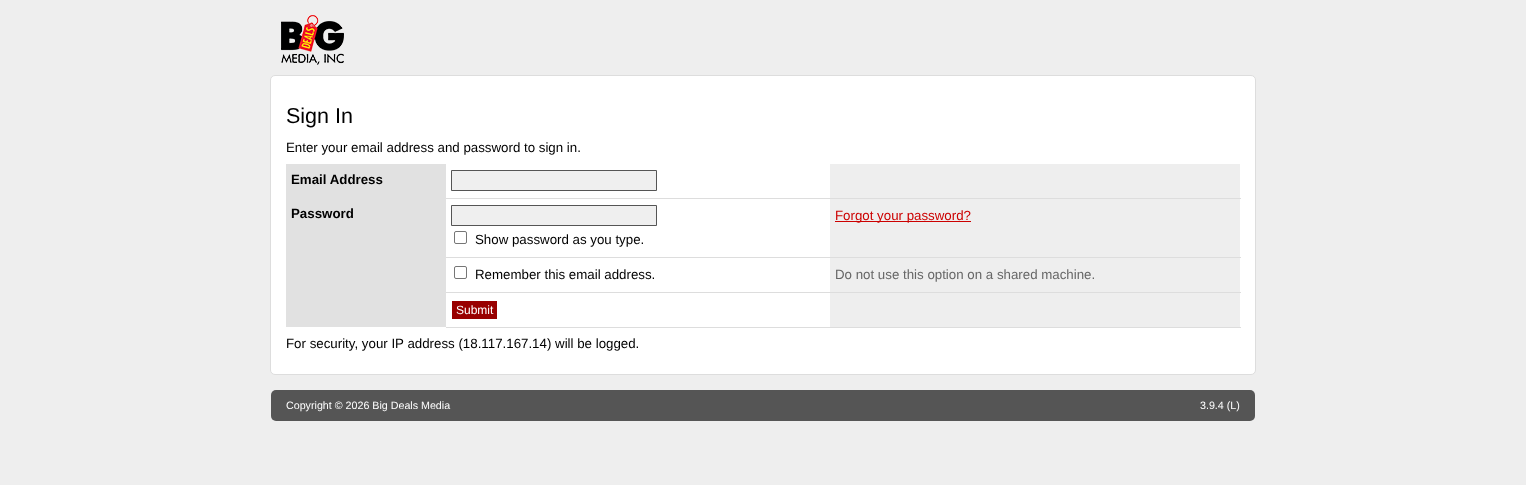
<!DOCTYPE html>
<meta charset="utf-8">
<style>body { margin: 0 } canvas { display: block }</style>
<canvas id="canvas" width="1526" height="485"></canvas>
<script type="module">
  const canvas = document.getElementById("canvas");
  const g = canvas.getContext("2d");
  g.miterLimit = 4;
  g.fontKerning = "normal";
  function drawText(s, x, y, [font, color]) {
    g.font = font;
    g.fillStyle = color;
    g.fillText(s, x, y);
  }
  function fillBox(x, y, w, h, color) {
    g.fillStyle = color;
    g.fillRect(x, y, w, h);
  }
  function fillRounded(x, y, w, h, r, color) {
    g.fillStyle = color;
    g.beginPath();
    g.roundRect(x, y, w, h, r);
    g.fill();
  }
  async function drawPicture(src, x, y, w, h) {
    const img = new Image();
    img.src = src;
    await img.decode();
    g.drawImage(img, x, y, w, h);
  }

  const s1 = ["21.5px Liberation Sans", "#000000"];
  const s2 = ["13.3px Liberation Sans", "#000000"];
  const s3 = ["bold 13.3px Liberation Sans", "#000000"];
  const s4 = ["13.3px Liberation Sans", "#CC0000"];
  const s5 = ["13.3px Liberation Sans", "#666666"];
  const s6 = ["12px Liberation Sans", "#FFFFFF"];
  const s7 = ["10.7px Liberation Sans", "#FFFFFF"];

  fillBox(0, 0, 1526, 485, "#EEEEEE");
  await drawPicture("pic1.png", 281, 15, 63, 50);
  g.fillStyle = "#FFFFFF";
  g.beginPath();
  g.roundRect(270.5, 75.5, 985, 299, 4.5);
  g.fill();
  g.strokeStyle = "#DDDDDD";
  g.stroke();
  drawText("Sign In", 286, 123, s1);
  drawText("Enter your email address and password to sign in.", 286, 152, s2);
  fillBox(830, 164, 410, 34, "#EEEEEE");
  fillBox(446, 198, 795, 1, "#DDDDDD");
  fillBox(286, 164, 160, 163, "#E1E1E1");
  drawText("Email Address", 291, 184, s3);
  g.fillStyle = "#EFEFEF";
  g.beginPath();
  g.rect(451.5, 170.5, 205, 20);
  g.fill();
  g.strokeStyle = "#555555";
  g.stroke();
  drawText("Password", 291, 218, s3);
  fillBox(830, 199, 410, 58, "#EEEEEE");
  fillBox(446, 257, 795, 1, "#DDDDDD");
  fillBox(835, 221, 136, 1, "#CC0000");
  drawText("Forgot your password?", 835, 220, s4);
  g.fillStyle = "#EFEFEF";
  g.beginPath();
  g.rect(451.5, 205.5, 205, 20);
  g.fill();
  g.stroke();
  g.beginPath();
  g.roundRect(454.5, 231.5, 12, 12, 1.5);
  g.strokeStyle = "#767676";
  g.stroke();
  drawText("Show password as you type.", 475, 244, s2);
  g.beginPath();
  g.roundRect(454.5, 266.5, 12, 12, 1.5);
  g.stroke();
  drawText("Remember this email address.", 475, 279, s2);
  fillBox(830, 258, 410, 34, "#EEEEEE");
  fillBox(446, 292, 795, 1, "#DDDDDD");
  drawText("Do not use this option on a shared machine.", 835, 279, s5);
  fillBox(830, 293, 410, 34, "#EEEEEE");
  fillBox(446, 327, 795, 1, "#DDDDDD");
  fillBox(452, 301, 45, 18, "#990000");
  drawText("Submit", 456, 314, s6);
  drawText("For security, your IP address (18.117.167.14) will be logged.", 286, 348, s2);
  fillRounded(271, 390, 984, 31, 5, "#555555");
  drawText("Copyright © 2026 Big Deals Media", 286, 409, s7);
  drawText("3.9.4 (L)", 1200, 409, s7);
</script>
